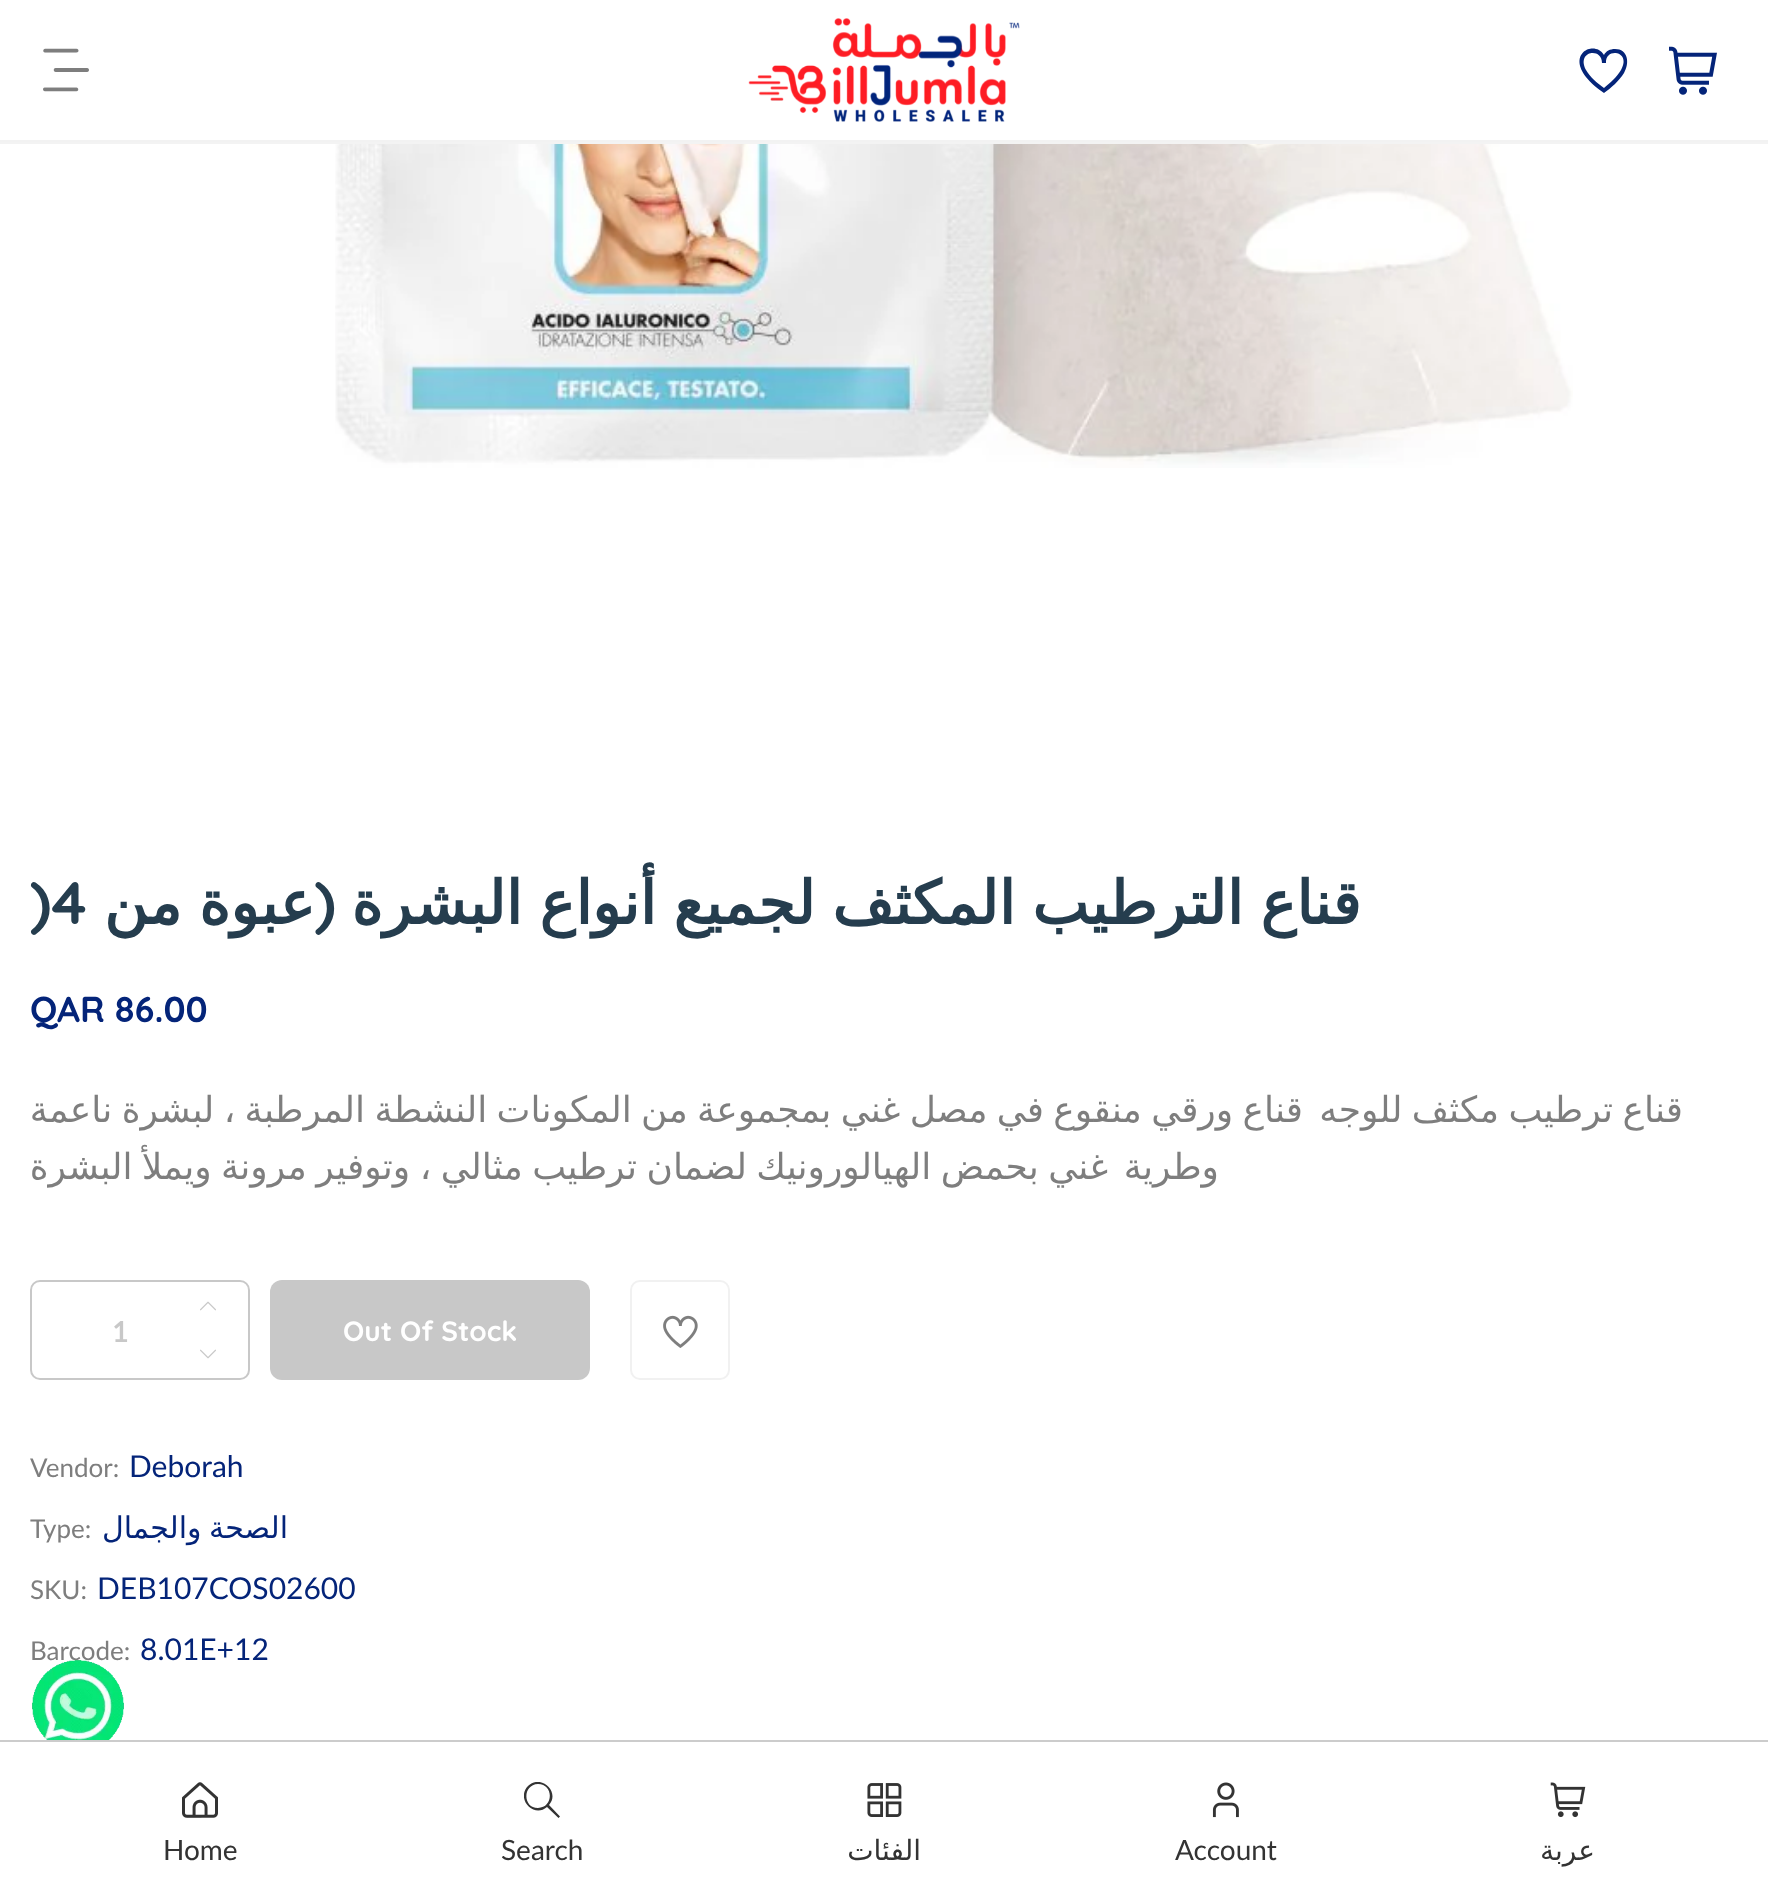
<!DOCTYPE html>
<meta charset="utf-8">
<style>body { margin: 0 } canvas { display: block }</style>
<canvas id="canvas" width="1768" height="1893"></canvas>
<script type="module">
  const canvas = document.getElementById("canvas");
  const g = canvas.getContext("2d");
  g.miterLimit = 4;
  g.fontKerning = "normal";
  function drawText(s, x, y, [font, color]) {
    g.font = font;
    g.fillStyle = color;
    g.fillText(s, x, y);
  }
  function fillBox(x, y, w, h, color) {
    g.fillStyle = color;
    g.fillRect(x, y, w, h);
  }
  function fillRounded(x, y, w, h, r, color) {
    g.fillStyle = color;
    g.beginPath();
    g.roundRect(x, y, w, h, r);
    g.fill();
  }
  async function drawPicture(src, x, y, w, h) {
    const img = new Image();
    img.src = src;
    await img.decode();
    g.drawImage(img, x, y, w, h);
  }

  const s1 = ["bold 60px DejaVu Sans", "#253D4E"];
  const s2 = ["bold 60px Quicksand", "#253D4E"];
  const s3 = ["bold 36px Quicksand", "#042479"];
  const s4 = ["36px DejaVu Sans", "#7E7E7E"];
  const s5 = ["bold 28px Quicksand", "#FFFFFF"];
  const s6 = ["bold 28px Lato", "#C8C8C8"];
  const s7 = ["30px Lato", "#042479"];
  const s8 = ["26px Lato", "#7E7E7E"];
  const s9 = ["30px DejaVu Sans", "#042479"];
  const s10 = ["28px DejaVu Sans", "#333333"];
  const s11 = ["28px Lato", "#333333"];

  fillBox(0, 0, 1768, 1893, "#FFFFFF");
  fillBox(0, 142, 1768, 2, "#F3F3F3");
  await drawPicture("pic1.png", 1669, 46, 48, 49);
  g.fillStyle = "#042479";
  g.beginPath();
  g.moveTo(1615, 49);
  g.bezierCurveTo(1610, 49, 1606, 51, 1604, 55);
  g.bezierCurveTo(1593, 37, 1555, 59, 1604, 93);
  g.bezierCurveTo(1611, 88, 1619, 81, 1624, 73);
  g.bezierCurveTo(1630, 63, 1628, 49, 1615, 49);
  g.closePath();
  g.moveTo(1604, 88);
  g.bezierCurveTo(1597, 83, 1590, 77, 1586, 70);
  g.bezierCurveTo(1576, 51, 1602, 47, 1602, 63);
  g.lineTo(1606, 63);
  g.bezierCurveTo(1605, 47, 1632, 51, 1621, 70);
  g.bezierCurveTo(1617, 77, 1610, 83, 1604, 88);
  g.closePath();
  g.fill();
  await drawPicture("pic2.png", 748, 18, 272, 104);
  await drawPicture("pic3.png", 43, 48, 46, 44);
  fillBox(0, 140, 1768, 2, "#F2F2F2");
  await drawPicture("pic4.png", 335, 144, 1238, 324);
  g.wordSpacing = "-2px";
  g.direction = "rtl";
  drawText("قناع الترطيب المكثف لجميع أنواع البشرة", 1361, 924, s1);
  g.wordSpacing = "0px";
  drawText("(", 336, 924, s2);
  g.wordSpacing = "-2px";
  drawText("عبوة من", 315, 924, s1);
  g.wordSpacing = "0px";
  g.direction = "ltr";
  drawText(")4", 30, 924, s2);
  drawText("QAR 86.00", 30, 1022, s3);
  g.wordSpacing = "-2.1px";
  g.direction = "rtl";
  drawText("قناع ترطيب مكثف للوجه", 1683, 1122, s4);
  drawText("قناع ورقي منقوع في مصل غني بمجموعة من المكونات النشطة المرطبة ، لبشرة ناعمة", 1303, 1122, s4);
  g.wordSpacing = "0px";
  drawText("وطرية", 1219, 1179, s4);
  g.wordSpacing = "-2px";
  drawText("غني بحمض الهيالورونيك لضمان ترطيب مثالي ، وتوفير مرونة ويملأ البشرة", 1108, 1179, s4);
  g.beginPath();
  g.roundRect(631, 1281, 98, 98, 9);
  g.strokeStyle = "#F1F1F1";
  g.lineWidth = 2;
  g.stroke();
  await drawPicture("pic5.png", 663, 1315, 35, 33);
  fillRounded(270, 1280, 320, 100, 12, "#C8C8C8");
  g.wordSpacing = "0px";
  g.direction = "ltr";
  drawText("Out Of Stock", 343, 1341, s5);
  g.beginPath();
  g.roundRect(31, 1281, 218, 98, 9);
  g.strokeStyle = "#C8C8C8";
  g.stroke();
  await drawPicture("pic6.png", 200, 1301, 16, 10);
  drawText("1", 112, 1342, s6);
  await drawPicture("pic7.png", 200, 1349, 16, 10);
  drawText("Deborah", 129, 1477, s7);
  drawText("Vendor:", 30, 1477, s8);
  g.wordSpacing = "-2px";
  g.direction = "rtl";
  drawText("الصحة والجمال", 288, 1538, s9);
  g.wordSpacing = "0px";
  g.direction = "ltr";
  drawText("Type:", 30, 1538, s8);
  drawText("DEB107COS02600", 97, 1599, s7);
  drawText("SKU:", 30, 1599, s8);
  drawText("8.01E+12", 140, 1660, s7);
  drawText("Barcode:", 30, 1660, s8);
  await drawPicture("pic8.png", 32, 1660, 92, 80);
  fillBox(0, 1740, 1768, 2, "#CCCCCC");
  await drawPicture("pic9.png", 1550, 1782, 36, 36);
  g.direction = "rtl";
  drawText("عربة", 1595, 1860, s10);
  await drawPicture("pic10.png", 1212, 1782, 27, 36);
  g.direction = "ltr";
  drawText("Account", 1175, 1860, s11);
  await drawPicture("pic11.png", 867, 1783, 35, 34);
  g.direction = "rtl";
  drawText("الفئات", 921, 1860, s10);
  g.save();
  g.beginPath();
  g.rect(524, 1782, 36, 36);
  g.clip();
  g.beginPath();
  g.moveTo(560, 1816.5);
  g.lineTo(549, 1805);
  g.bezierCurveTo(560.5, 1792, 541, 1773.5, 528, 1786);
  g.bezierCurveTo(515.5, 1799, 534, 1818.5, 547, 1807);
  g.lineTo(558.5, 1818);
  g.closePath();
  g.moveTo(538, 1808);
  g.bezierCurveTo(522.5, 1808, 522.5, 1784.5, 538, 1784);
  g.bezierCurveTo(554, 1784, 553.5, 1808, 538, 1808);
  g.closePath();
  g.fill();
  g.restore();
  g.direction = "ltr";
  drawText("Search", 501, 1860, s11);
  await drawPicture("pic12.png", 182, 1782, 36, 36);
  drawText("Home", 163, 1860, s11);
</script>
